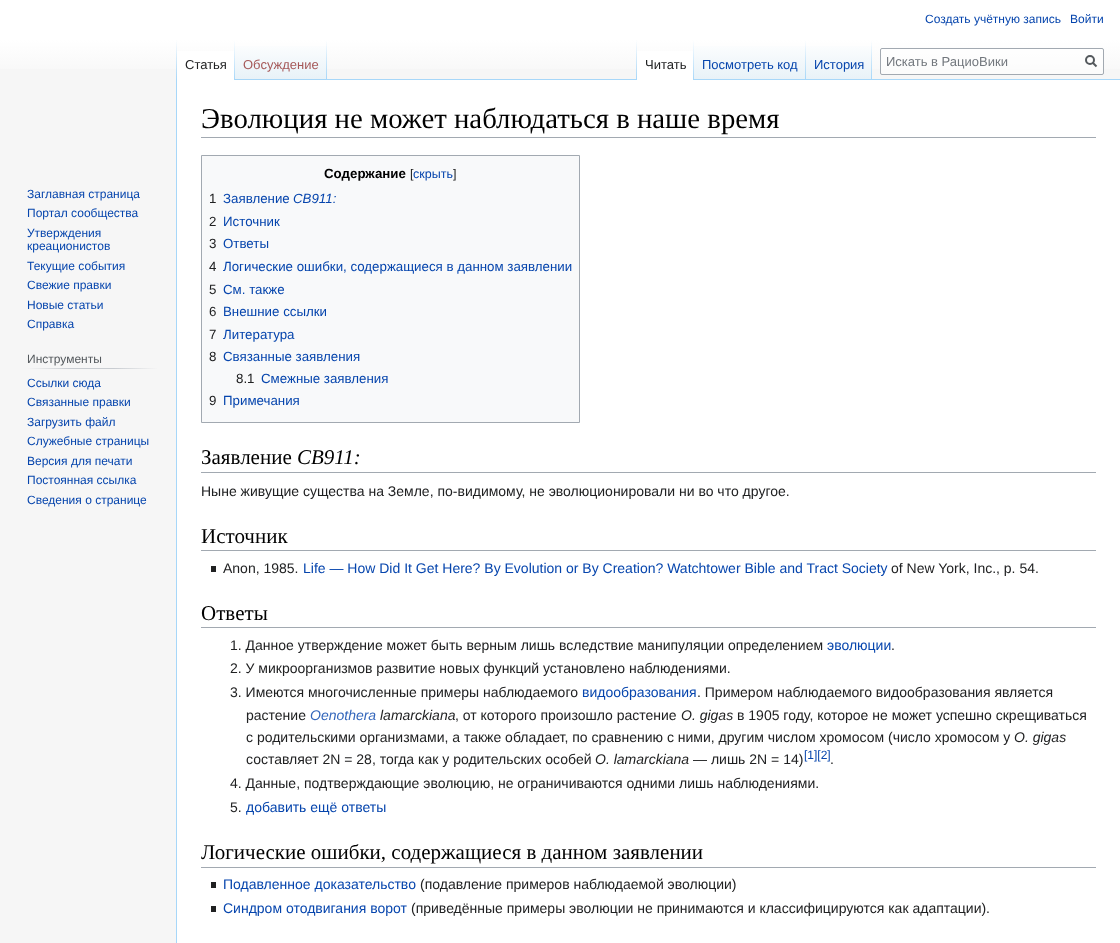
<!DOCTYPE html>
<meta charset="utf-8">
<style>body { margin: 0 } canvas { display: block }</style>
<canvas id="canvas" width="1120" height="943"></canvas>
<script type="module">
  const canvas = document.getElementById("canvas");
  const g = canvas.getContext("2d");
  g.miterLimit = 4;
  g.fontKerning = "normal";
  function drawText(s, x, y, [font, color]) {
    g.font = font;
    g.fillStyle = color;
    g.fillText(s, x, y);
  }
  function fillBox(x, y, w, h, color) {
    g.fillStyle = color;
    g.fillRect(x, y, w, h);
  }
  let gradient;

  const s1 = ["12px Liberation Sans", "#0645AD"];
  const s2 = ["13px Liberation Sans", "#202122"];
  const s3 = ["13px Liberation Sans", "#A55858"];
  const s4 = ["13px Liberation Sans", "#0645AD"];
  const s5 = ["13px Liberation Sans", "#72777D"];
  const s6 = ["12px Liberation Sans", "#54595D"];
  const s7 = ["28.8px Liberation Serif", "#000000"];
  const s8 = ["bold 13.3px Liberation Sans", "#000000"];
  const s9 = ["12.5px Liberation Sans", "#202122"];
  const s10 = ["12.5px Liberation Sans", "#0645AD"];
  const s11 = ["13.3px Liberation Sans", "#202122"];
  const s12 = ["13.3px Liberation Sans", "#0645AD"];
  const s13 = ["italic 13.3px Liberation Sans", "#0645AD"];
  const s14 = ["21px Liberation Serif", "#000000"];
  const s15 = ["italic 21px Liberation Serif", "#000000"];
  const s16 = ["14px Liberation Sans", "#202122"];
  const s17 = ["14px Liberation Sans", "#0645AD"];
  const s18 = ["italic 14px Liberation Sans", "#3366BB"];
  const s19 = ["italic 14px Liberation Sans", "#202122"];

  fillBox(0, 0, 1120, 943, "#F6F6F6");
  gradient = g.createLinearGradient(560, 0, 560, 80);
  gradient.addColorStop(0.5, "#FFFFFF");
  gradient.addColorStop(1, "#F6F6F6");
  g.fillStyle = gradient;
  g.fillRect(0, 0, 1120, 69);
  drawText("Создать учётную запись", 925, 23, s1);
  drawText("Войти", 1070, 23, s1);
  fillBox(176, 79, 1, 864, "#A7D7F9");
  gradient = g.createLinearGradient(177, 40, 177, 80);
  gradient.addColorStop(0, "rgba(167, 215, 249, 0)");
  gradient.addColorStop(1, "#A7D7F9");
  g.fillStyle = gradient;
  g.fillRect(176, 40, 1, 40);
  fillBox(177, 51, 57, 29, "#FFFFFF");
  gradient = g.createLinearGradient(235, 40, 235, 80);
  gradient.addColorStop(0, "#FFFFFF");
  gradient.addColorStop(1, "#A7D7F9");
  g.fillStyle = gradient;
  g.fillRect(234, 40, 1, 40);
  drawText("Статья", 185, 69, s2);
  gradient = g.createLinearGradient(281, 80, 281, 40);
  gradient.addColorStop(0, "#77C1F6");
  gradient.addColorStop(0.03, "#E8F2F8");
  gradient.addColorStop(1, "#FFFFFF");
  g.fillStyle = gradient;
  g.fillRect(235, 46, 92, 34);
  gradient = g.createLinearGradient(327, 40, 327, 80);
  gradient.addColorStop(0, "rgba(167, 215, 249, 0)");
  gradient.addColorStop(1, "#A7D7F9");
  g.fillStyle = gradient;
  g.fillRect(326, 40, 1, 40);
  drawText("Обсуждение", 243, 69, s3);
  fillBox(327, 79, 793, 1, "#A7D7F9");
  gradient = g.createLinearGradient(637, 40, 637, 80);
  gradient.addColorStop(0, "rgba(167, 215, 249, 0)");
  gradient.addColorStop(1, "#A7D7F9");
  g.fillStyle = gradient;
  g.fillRect(636, 40, 1, 40);
  fillBox(637, 51, 56, 29, "#FFFFFF");
  gradient = g.createLinearGradient(694, 40, 694, 80);
  gradient.addColorStop(0, "#FFFFFF");
  gradient.addColorStop(1, "#A7D7F9");
  g.fillStyle = gradient;
  g.fillRect(693, 40, 1, 40);
  drawText("Читать", 645, 69, s2);
  gradient = g.createLinearGradient(750, 80, 750, 40);
  gradient.addColorStop(0, "#77C1F6");
  gradient.addColorStop(0.03, "#E8F2F8");
  gradient.addColorStop(1, "#FFFFFF");
  g.fillStyle = gradient;
  g.fillRect(694, 46, 112, 33);
  gradient = g.createLinearGradient(806, 40, 806, 80);
  gradient.addColorStop(0, "rgba(167, 215, 249, 0)");
  gradient.addColorStop(1, "#A7D7F9");
  g.fillStyle = gradient;
  g.fillRect(805, 40, 1, 40);
  drawText("Посмотреть код", 702, 69, s4);
  gradient = g.createLinearGradient(839, 80, 839, 40);
  gradient.addColorStop(0, "#77C1F6");
  gradient.addColorStop(0.03, "#E8F2F8");
  gradient.addColorStop(1, "#FFFFFF");
  g.fillStyle = gradient;
  g.fillRect(806, 46, 66, 33);
  gradient = g.createLinearGradient(872, 40, 872, 80);
  gradient.addColorStop(0, "rgba(167, 215, 249, 0)");
  gradient.addColorStop(1, "#A7D7F9");
  g.fillStyle = gradient;
  g.fillRect(871, 40, 1, 40);
  drawText("История", 814, 69, s4);
  g.fillStyle = "rgba(255, 255, 255, 0.5)";
  g.beginPath();
  g.roundRect(880.5, 48.5, 223, 26, 1.5);
  g.fill();
  g.strokeStyle = "#A2A9B1";
  g.stroke();
  drawText("Искать в РациоВики", 886, 66, s5);
  g.beginPath();
  g.moveTo(1096.5, 66.5);
  g.lineTo(1092.5, 62.5);
  g.strokeStyle = "#54595D";
  g.lineWidth = 2;
  g.stroke();
  g.beginPath();
  g.arc(1090, 60, 4, 0, Math.PI * 2);
  g.stroke();
  drawText("Заглавная страница", 27, 198, s1);
  drawText("Портал сообщества", 27, 217, s1);
  drawText("Утверждения", 27, 237, s1);
  drawText("креационистов", 27, 250, s1);
  drawText("Текущие события", 27, 270, s1);
  drawText("Свежие правки", 27, 289, s1);
  drawText("Новые статьи", 27, 309, s1);
  drawText("Справка", 27, 328, s1);
  gradient = g.createLinearGradient(27, 369, 158, 369);
  gradient.addColorStop(0, "#F6F6F6");
  gradient.addColorStop(0.33, "#C8CCD1");
  gradient.addColorStop(0.66, "#C8CCD1");
  gradient.addColorStop(1, "#F6F6F6");
  g.fillStyle = gradient;
  g.fillRect(27, 368, 131, 1);
  drawText("Инструменты", 27, 363, s6);
  drawText("Ссылки сюда", 27, 387, s1);
  drawText("Связанные правки", 27, 406, s1);
  drawText("Загрузить файл", 27, 426, s1);
  drawText("Служебные страницы", 27, 445, s1);
  drawText("Версия для печати", 27, 465, s1);
  drawText("Постоянная ссылка", 27, 484, s1);
  drawText("Сведения о странице", 27, 504, s1);
  fillBox(177, 80, 943, 863, "#FFFFFF");
  fillBox(201, 137, 895, 1, "#A2A9B1");
  drawText("Эволюция не может наблюдаться в наше время", 201, 128, s7);
  g.fillStyle = "#F8F9FA";
  g.beginPath();
  g.rect(201.5, 155.5, 378, 267);
  g.fill();
  g.strokeStyle = "#A2A9B1";
  g.lineWidth = 1;
  g.stroke();
  drawText("Содержание", 324, 178, s8);
  drawText("[", 410, 178, s9);
  drawText("скрыть", 413, 178, s10);
  drawText("]", 453, 178, s9);
  drawText("1", 209, 203, s11);
  drawText("Заявление", 223, 203, s12);
  drawText("CB911:", 293, 203, s13);
  drawText("2", 209, 226, s11);
  drawText("Источник", 223, 226, s12);
  drawText("3", 209, 248, s11);
  drawText("Ответы", 223, 248, s12);
  drawText("4", 209, 271, s11);
  drawText("Логические ошибки, содержащиеся в данном заявлении", 223, 271, s12);
  drawText("5", 209, 294, s11);
  drawText("См. также", 223, 294, s12);
  drawText("6", 209, 316, s11);
  drawText("Внешние ссылки", 223, 316, s12);
  drawText("7", 209, 339, s11);
  drawText("Литература", 223, 339, s12);
  drawText("8", 209, 361, s11);
  drawText("Связанные заявления", 223, 361, s12);
  drawText("8.1", 236, 383, s11);
  drawText("Смежные заявления", 261, 383, s12);
  drawText("9", 209, 405, s11);
  drawText("Примечания", 223, 405, s12);
  fillBox(201, 472, 895, 1, "#A2A9B1");
  drawText("Заявление", 201, 464, s14);
  drawText("CB911:", 297, 464, s15);
  drawText("Ныне живущие существа на Земле, по-видимому, не эволюционировали ни во что другое.", 201, 496, s16);
  fillBox(201, 550, 895, 1, "#A2A9B1");
  drawText("Источник", 201, 543, s14);
  fillBox(211, 566, 5, 6, "#202122");
  drawText("Anon, 1985.", 223, 573, s16);
  drawText("Life — How Did It Get Here? By Evolution or By Creation? Watchtower Bible and Tract Society", 303, 573, s17);
  drawText("of New York, Inc., p. 54.", 891, 573, s16);
  fillBox(201, 627, 895, 1, "#A2A9B1");
  drawText("Ответы", 201, 620, s14);
  drawText("1. Данное утверждение может быть верным лишь вследствие манипуляции определением", 230, 650, s16);
  drawText("эволюции", 827, 650, s17);
  drawText(".", 891, 650, s16);
  drawText("2. У микроорганизмов развитие новых функций установлено наблюдениями.", 230, 673, s16);
  drawText("3. Имеются многочисленные примеры наблюдаемого", 230, 697, s16);
  drawText("видообразования", 582, 697, s17);
  drawText(". Примером наблюдаемого видообразования является", 697, 697, s16);
  drawText("растение", 246, 720, s16);
  drawText("Oenothera", 310, 720, s18);
  drawText("lamarckiana", 380, 720, s19);
  drawText(", от которого произошло растение", 455, 720, s16);
  drawText("O. gigas", 681, 720, s19);
  drawText("в 1905 году, которое не может успешно скрещиваться", 737, 720, s16);
  drawText("с родительскими организмами, а также обладает, по сравнению с ними, другим числом хромосом (число хромосом у", 246, 742, s16);
  drawText("O. gigas", 1014, 742, s19);
  drawText("составляет 2N = 28, тогда как у родительских особей", 246, 764, s16);
  drawText("O. lamarckiana", 595, 764, s19);
  drawText("— лишь 2N = 14)", 693, 764, s16);
  drawText("[1][2]", 804, 759, s1);
  drawText(".", 830, 764, s16);
  drawText("4. Данные, подтверждающие эволюцию, не ограничиваются одними лишь наблюдениями.", 230, 788, s16);
  drawText("5.", 230, 812, s16);
  drawText("добавить ещё ответы", 246, 812, s17);
  fillBox(201, 867, 895, 1, "#A2A9B1");
  drawText("Логические ошибки, содержащиеся в данном заявлении", 201, 859, s14);
  fillBox(211, 882, 5, 6, "#202122");
  drawText("Подавленное доказательство", 223, 889, s17);
  drawText("(подавление примеров наблюдаемой эволюции)", 420, 889, s16);
  fillBox(211, 906, 5, 6, "#202122");
  drawText("Синдром отодвигания ворот", 223, 913, s17);
  drawText("(приведённые примеры эволюции не принимаются и классифицируются как адаптации).", 411, 913, s16);
</script>
